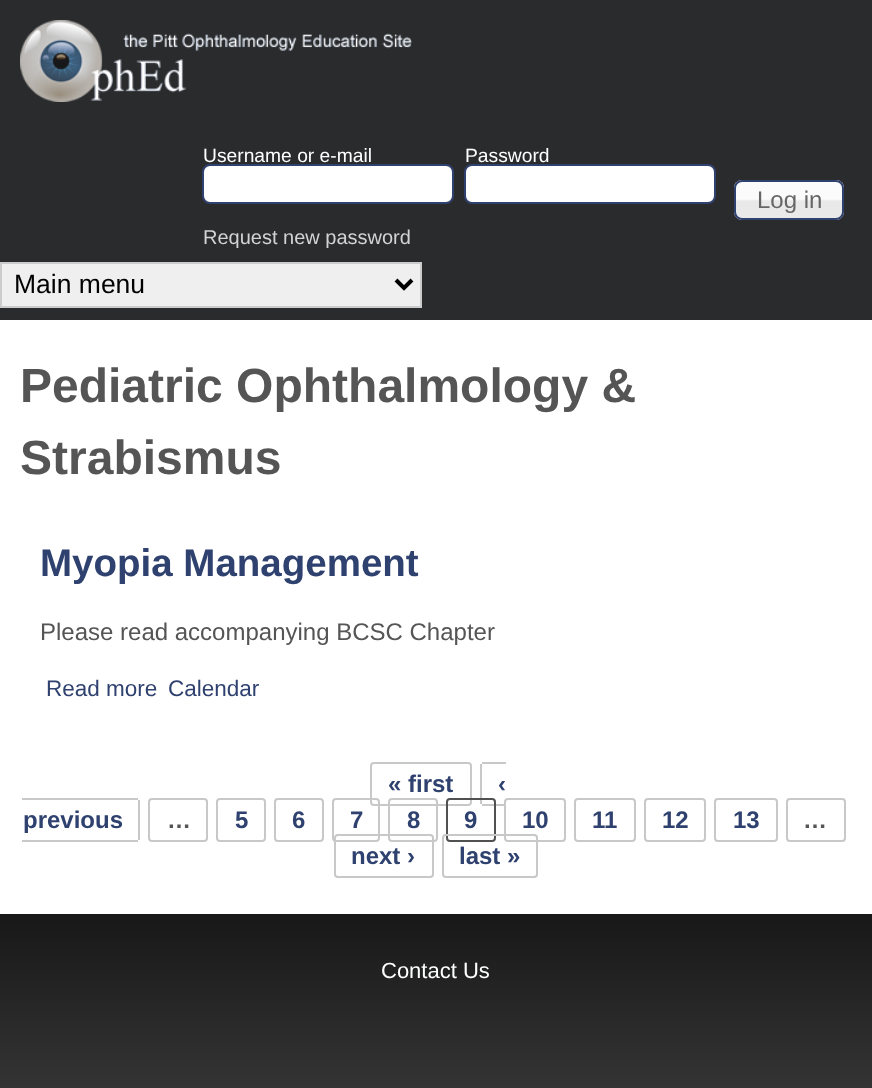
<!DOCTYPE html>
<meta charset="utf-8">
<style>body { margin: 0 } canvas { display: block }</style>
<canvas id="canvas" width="872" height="1088"></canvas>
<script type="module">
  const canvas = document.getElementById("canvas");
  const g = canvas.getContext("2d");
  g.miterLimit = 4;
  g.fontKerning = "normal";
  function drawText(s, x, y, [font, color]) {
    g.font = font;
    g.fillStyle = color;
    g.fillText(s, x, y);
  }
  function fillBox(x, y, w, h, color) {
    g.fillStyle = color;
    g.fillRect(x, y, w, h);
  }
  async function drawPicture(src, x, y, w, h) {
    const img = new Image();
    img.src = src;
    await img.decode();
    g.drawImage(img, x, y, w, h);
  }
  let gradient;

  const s1 = ["19.25px Liberation Sans", "#FEFFFF"];
  const s2 = ["24px Liberation Sans", "#666666"];
  const s3 = ["20px Liberation Sans", "#D3D3D3"];
  const s4 = ["26.5px Liberation Sans", "#000000"];
  const s5 = ["bold 48px Liberation Sans", "#555555"];
  const s6 = ["bold 38.5px Liberation Sans", "#2F416F"];
  const s7 = ["24px Liberation Sans", "#555555"];
  const s8 = ["22.5px Liberation Sans", "#2F416F"];
  const s9 = ["bold 24px Liberation Sans", "#2F416F"];
  const s10 = ["bold 24px Liberation Sans", "#555555"];
  const s11 = ["22px Liberation Sans", "#FEFFFF"];

  fillBox(0, 0, 872, 1088, "#FFFFFF");
  fillBox(0, 0, 872, 248, "#2A2B2D");
  await drawPicture("pic1.png", 20, 20, 392, 82);
  drawText("Username or e-mail", 203, 162, s1);
  g.fillStyle = "#FFFFFF";
  g.beginPath();
  g.roundRect(203, 165, 250, 38, 7);
  g.fill();
  g.strokeStyle = "#2F416F";
  g.lineWidth = 2;
  g.stroke();
  drawText("Password", 465, 162, s1);
  g.fillStyle = "#FFFFFF";
  g.beginPath();
  g.roundRect(465, 165, 250, 38, 7);
  g.fill();
  g.stroke();
  await drawPicture("pic2.png", 734, 180, 110, 40);
  g.beginPath();
  g.roundRect(735, 181, 108, 38, 7);
  g.stroke();
  drawText("Log in", 757, 208, s2);
  drawText("Request new password", 203, 244, s3);
  fillBox(0, 248, 872, 72, "#2A2B2D");
  g.fillStyle = "#EFEFEF";
  g.beginPath();
  g.rect(1, 263, 420, 44);
  g.fill();
  g.strokeStyle = "#CCCCCC";
  g.stroke();
  g.beginPath();
  g.moveTo(396, 280);
  g.lineTo(404, 288);
  g.lineTo(412, 280);
  g.strokeStyle = "#000000";
  g.lineWidth = 4;
  g.stroke();
  drawText("Main menu", 14, 293, s4);
  drawText("Pediatric Ophthalmology &", 20, 402, s5);
  drawText("Strabismus", 20, 474, s5);
  drawText("Myopia Management", 40, 576, s6);
  drawText("Please read accompanying BCSC Chapter", 40, 640, s7);
  drawText("Read more", 46, 696, s8);
  drawText("Calendar", 168, 696, s8);
  g.beginPath();
  g.roundRect(371, 763, 100, 42, 3);
  g.strokeStyle = "#C8C8C9";
  g.lineWidth = 2;
  g.stroke();
  drawText("« first", 388, 792, s9);
  drawText("‹", 498, 792, s9);
  fillBox(482, 762, 24, 2, "#C8C8C9");
  fillBox(482, 804, 24, 2, "#C8C8C9");
  fillBox(480, 764, 2, 40, "#C8C8C9");
  drawText("previous", 23, 828, s9);
  fillBox(22, 798, 116, 2, "#C8C8C9");
  fillBox(138, 800, 2, 40, "#C8C8C9");
  fillBox(22, 840, 116, 2, "#C8C8C9");
  g.beginPath();
  g.roundRect(149, 799, 58, 42, 3);
  g.stroke();
  drawText("…", 167, 828, s10);
  g.beginPath();
  g.roundRect(217, 799, 48, 42, 3);
  g.stroke();
  drawText("5", 235, 828, s9);
  g.beginPath();
  g.roundRect(275, 799, 48, 42, 3);
  g.stroke();
  drawText("6", 292, 828, s9);
  g.beginPath();
  g.roundRect(333, 799, 46, 42, 3);
  g.stroke();
  drawText("7", 350, 828, s9);
  g.beginPath();
  g.roundRect(389, 799, 48, 42, 3);
  g.stroke();
  drawText("8", 407, 828, s9);
  g.beginPath();
  g.roundRect(447, 799, 48, 42, 3);
  g.strokeStyle = "#4F5152";
  g.stroke();
  drawText("9", 464, 828, s9);
  g.beginPath();
  g.roundRect(505, 799, 60, 42, 3);
  g.strokeStyle = "#C8C8C9";
  g.stroke();
  drawText("10", 522, 828, s9);
  g.beginPath();
  g.roundRect(575, 799, 60, 42, 3);
  g.stroke();
  drawText("11", 592, 828, s9);
  g.beginPath();
  g.roundRect(645, 799, 60, 42, 3);
  g.stroke();
  drawText("12", 662, 828, s9);
  g.beginPath();
  g.roundRect(715, 799, 62, 42, 3);
  g.stroke();
  drawText("13", 733, 828, s9);
  g.beginPath();
  g.roundRect(787, 799, 58, 42, 3);
  g.stroke();
  drawText("…", 803, 828, s10);
  g.beginPath();
  g.roundRect(335, 835, 98, 42, 3);
  g.stroke();
  drawText("next ›", 351, 864, s9);
  g.beginPath();
  g.roundRect(443, 835, 94, 42, 3);
  g.stroke();
  drawText("last »", 459, 864, s9);
  gradient = g.createLinearGradient(0, 914, 0, 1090);
  gradient.addColorStop(0, "#181818");
  gradient.addColorStop(1, "#343434");
  g.fillStyle = gradient;
  g.fillRect(0, 914, 872, 174);
  drawText("Contact Us", 381, 978, s11);
</script>
